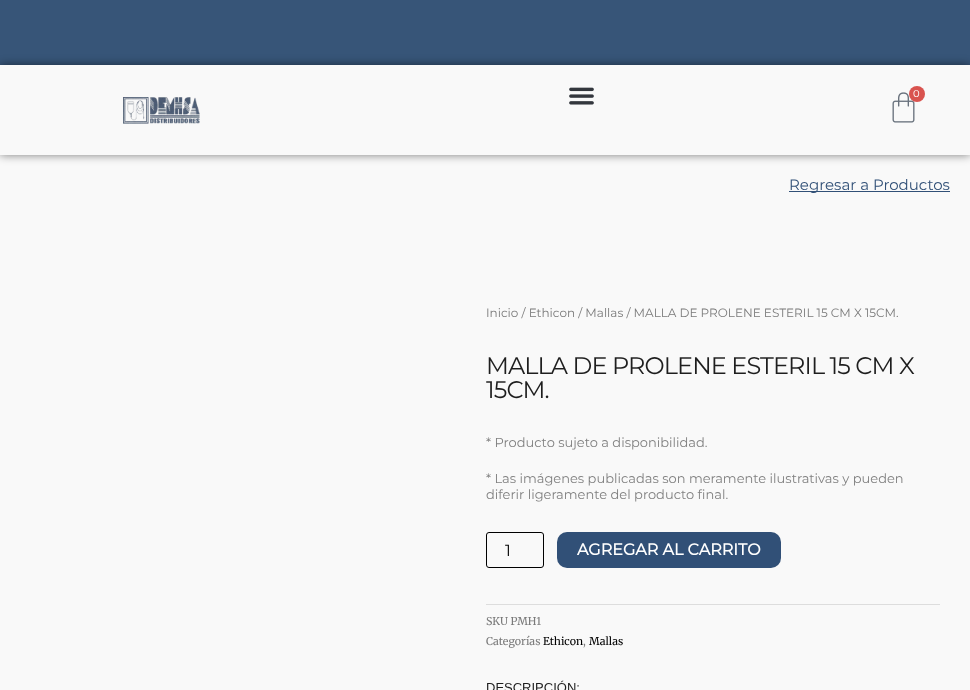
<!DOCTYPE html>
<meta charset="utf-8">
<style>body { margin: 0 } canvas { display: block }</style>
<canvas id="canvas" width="970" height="690"></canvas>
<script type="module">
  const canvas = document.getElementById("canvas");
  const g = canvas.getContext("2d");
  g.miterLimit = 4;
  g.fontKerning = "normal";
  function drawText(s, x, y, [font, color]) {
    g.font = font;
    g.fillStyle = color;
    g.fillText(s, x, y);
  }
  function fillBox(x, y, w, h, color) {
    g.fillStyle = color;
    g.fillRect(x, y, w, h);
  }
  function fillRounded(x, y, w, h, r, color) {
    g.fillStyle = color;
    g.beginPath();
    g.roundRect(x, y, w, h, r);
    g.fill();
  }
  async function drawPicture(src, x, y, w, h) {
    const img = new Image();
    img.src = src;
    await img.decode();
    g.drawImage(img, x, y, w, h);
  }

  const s1 = ["100 10px Montserrat", "#FFFFFF"];
  const s2 = ["100 15px Montserrat", "#315077"];
  const s3 = ["100 12px Montserrat", "#7A7A7A"];
  const s4 = ["100 24px Montserrat", "#1E1E1E"];
  const s5 = ["100 13px Montserrat", "#818181"];
  const s6 = ["100 16px Montserrat", "#000000"];
  const s7 = ["bold 16px Montserrat", "#FFFFFF"];
  const s8 = ["10.75px Merriweather", "#7A7A7A"];
  const s9 = ["10.75px Merriweather", "#000000"];
  const s10 = ["13px Liberation Sans", "#1E1E1E"];

  fillBox(0, 0, 970, 690, "#F9F9F9");
  fillBox(0, 0, 970, 65, "#375578");
  g.save();
  g.beginPath();
  g.moveTo(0, 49);
  g.lineTo(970, 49);
  g.lineTo(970, 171);
  g.lineTo(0, 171);
  g.closePath();
  g.moveTo(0, 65);
  g.lineTo(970, 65);
  g.lineTo(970, 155);
  g.lineTo(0, 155);
  g.closePath();
  g.clip("evenodd");
  g.fillStyle = "rgba(0, 0, 0, 0.5)";
  g.filter = "blur(5px)";
  g.beginPath();
  g.rect(0, 65, 970, 90);
  g.fill();
  g.filter = "none";
  g.restore();
  await drawPicture("pic1.png", 569, 87, 25, 18);
  await drawPicture("pic2.png", 892, 92, 23, 31);
  g.fillStyle = "#D9534F";
  g.beginPath();
  g.arc(917, 94, 8, 0, Math.PI * 2);
  g.fill();
  drawText("0", 913, 97, s1);
  await drawPicture("pic3.png", 123, 97, 77, 27);
  fillBox(789, 191, 161, 1, "#315077");
  drawText("Regresar a Productos", 789, 190, s2);
  drawText("Inicio / Ethicon / Mallas / MALLA DE PROLENE ESTERIL 15 CM X 15CM.", 486, 317, s3);
  g.letterSpacing = "-0.9px";
  drawText("MALLA DE PROLENE ESTERIL 15 CM X", 486, 374, s4);
  drawText("15CM.", 486, 398, s4);
  g.letterSpacing = "0px";
  drawText("* Producto sujeto a disponibilidad.", 486, 447, s5);
  drawText("* Las imágenes publicadas son meramente ilustrativas y pueden", 486, 483, s5);
  drawText("diferir ligeramente del producto final.", 486, 499, s5);
  g.beginPath();
  g.roundRect(486.5, 532.5, 57, 35, 2.5);
  g.strokeStyle = "#000000";
  g.stroke();
  drawText("1", 505, 556, s6);
  fillRounded(557, 532, 224, 36, 10, "#315077");
  drawText("AGREGAR AL CARRITO", 577, 555, s7);
  fillBox(486, 604, 454, 1, "#DDDDDD");
  drawText("SKU PMH1", 486, 625, s8);
  drawText("Categorías", 486, 645, s8);
  drawText("Ethicon", 543, 645, s9);
  drawText(",", 583, 645, s8);
  drawText("Mallas", 589, 645, s9);
  drawText("DESCRIPCIÓN:", 486, 692, s10);
</script>
